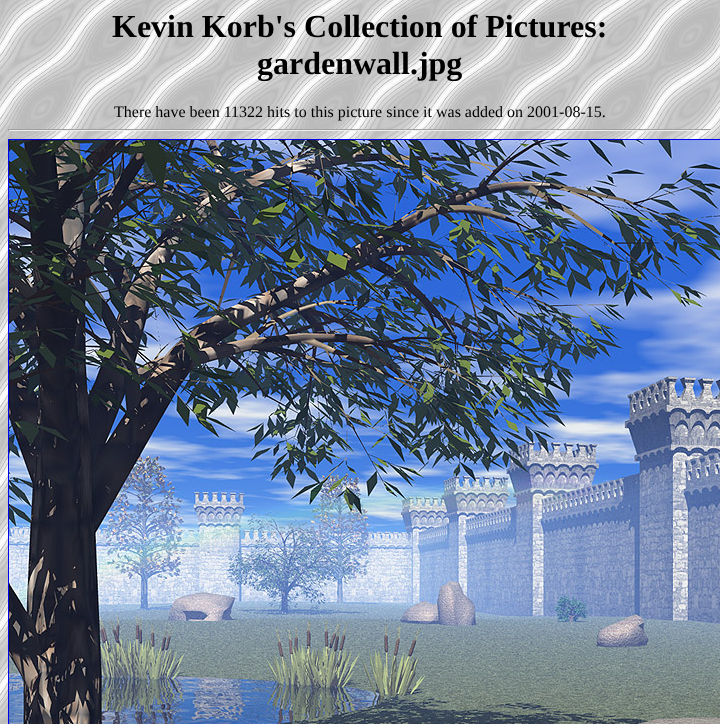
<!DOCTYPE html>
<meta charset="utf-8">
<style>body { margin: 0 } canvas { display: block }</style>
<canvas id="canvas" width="720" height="724"></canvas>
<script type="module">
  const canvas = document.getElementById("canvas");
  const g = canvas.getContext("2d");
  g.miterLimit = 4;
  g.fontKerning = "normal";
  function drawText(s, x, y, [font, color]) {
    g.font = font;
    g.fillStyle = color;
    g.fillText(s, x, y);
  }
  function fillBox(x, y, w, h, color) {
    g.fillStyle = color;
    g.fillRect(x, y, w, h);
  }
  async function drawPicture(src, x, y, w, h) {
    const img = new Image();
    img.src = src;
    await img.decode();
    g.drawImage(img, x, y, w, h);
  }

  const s1 = ["bold 32px Liberation Serif", "#000000"];
  const s2 = ["16px Liberation Serif", "#000000"];

  fillBox(0, 0, 720, 724, "#FFFFFF");
  await drawPicture("pic1.png", 0, 0, 720, 724);
  drawText("Kevin Korb's Collection of Pictures:", 112, 37, s1);
  drawText("gardenwall.jpg", 257, 74, s1);
  drawText("There have been 11322 hits to this picture since it was added on 2001-08-15.", 114, 117, s2);
  fillBox(8, 129, 704, 1, "#9F9F9F");
  fillBox(711, 129, 1, 2, "#EEEEEE");
  fillBox(8, 130, 704, 1, "#EEEEEE");
  fillBox(8, 129, 1, 2, "#9F9F9F");
  g.strokeStyle = "#0000EE";
  g.strokeRect(8.5, 139.5, 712, 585);
  await drawPicture("pic2.png", 9, 140, 711, 584);
</script>
